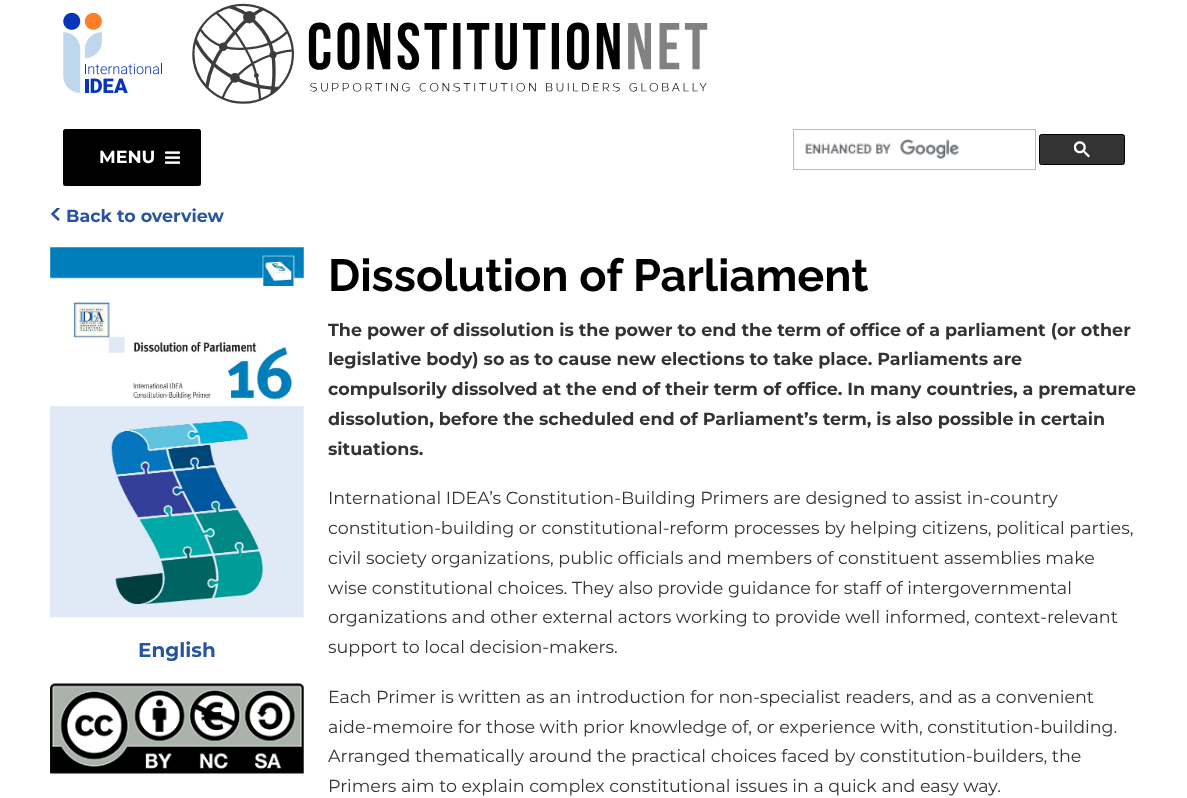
<!DOCTYPE html>
<meta charset="utf-8">
<style>body { margin: 0 } canvas { display: block }</style>
<canvas id="canvas" width="1187" height="798"></canvas>
<script type="module">
  const canvas = document.getElementById("canvas");
  const g = canvas.getContext("2d");
  g.miterLimit = 4;
  g.fontKerning = "normal";
  function drawText(s, x, y, [font, color]) {
    g.font = font;
    g.fillStyle = color;
    g.fillText(s, x, y);
  }
  function fillBox(x, y, w, h, color) {
    g.fillStyle = color;
    g.fillRect(x, y, w, h);
  }
  function fillRounded(x, y, w, h, r, color) {
    g.fillStyle = color;
    g.beginPath();
    g.roundRect(x, y, w, h, r);
    g.fill();
  }
  async function drawPicture(src, x, y, w, h) {
    const img = new Image();
    img.src = src;
    await img.decode();
    g.drawImage(img, x, y, w, h);
  }

  const s1 = ["bold 17.5px Montserrat", "#FFFFFF"];
  const s2 = ["bold 17.5px Montserrat", "#28569C"];
  const s3 = ["bold 20px Montserrat", "#28569C"];
  const s4 = ["bold 45px Raleway", "#000000"];
  const s5 = ["bold 17.5px Montserrat", "#333333"];
  const s6 = ["17.5px Montserrat", "#333333"];

  fillBox(0, 0, 1187, 798, "#FFFFFF");
  await drawPicture("pic1.png", 63, 12, 99, 81);
  await drawPicture("pic2.png", 192, 3, 516, 101);
  fillRounded(63, 129, 138, 57, 2.5, "#000000");
  drawText("MENU", 99, 163, s1);
  await drawPicture("pic3.png", 165, 151, 15, 13);
  g.strokeStyle = "#BBBBBB";
  g.strokeRect(793.5, 129.5, 242, 40);
  await drawPicture("pic4.png", 805, 139, 154, 20);
  g.fillStyle = "#333333";
  g.beginPath();
  g.roundRect(1039.5, 134.5, 85, 30, 2);
  g.fill();
  g.strokeStyle = "#000000";
  g.stroke();
  await drawPicture("pic5.png", 1074, 141, 16, 17);
  g.save();
  g.beginPath();
  g.rect(50, 208, 10, 15);
  g.clip();
  g.beginPath();
  g.moveTo(59, 207.5);
  g.lineTo(52.5, 214);
  g.lineTo(59, 220);
  g.strokeStyle = "#2D519B";
  g.lineWidth = 2.5;
  g.stroke();
  g.restore();
  drawText("Back to overview", 66, 222, s2);
  await drawPicture("pic6.png", 50, 247, 254, 371);
  drawText("English", 138, 657, s3);
  await drawPicture("pic7.png", 50, 683, 254, 91);
  drawText("Dissolution of Parliament", 328, 291, s4);
  drawText("The power of dissolution is the power to end the term of office of a parliament (or other", 328, 336, s5);
  drawText("legislative body) so as to cause new elections to take place. Parliaments are", 328, 365, s5);
  drawText("compulsorily dissolved at the end of their term of office. In many countries, a premature", 328, 395, s5);
  drawText("dissolution, before the scheduled end of Parliament’s term, is also possible in certain", 328, 425, s5);
  drawText("situations.", 328, 455, s5);
  drawText("International IDEA’s Constitution-Building Primers are designed to assist in-country", 328, 504, s6);
  drawText("constitution-building or constitutional-reform processes by helping citizens, political parties,", 328, 534, s6);
  drawText("civil society organizations, public officials and members of constituent assemblies make", 328, 564, s6);
  drawText("wise constitutional choices. They also provide guidance for staff of intergovernmental", 328, 594, s6);
  drawText("organizations and other external actors working to provide well informed, context-relevant", 328, 623, s6);
  drawText("support to local decision-makers.", 328, 653, s6);
  drawText("Each Primer is written as an introduction for non-specialist readers, and as a convenient", 328, 703, s6);
  drawText("aide-memoire for those with prior knowledge of, or experience with, constitution-building.", 328, 733, s6);
  drawText("Arranged thematically around the practical choices faced by constitution-builders, the", 328, 762, s6);
  drawText("Primers aim to explain complex constitutional issues in a quick and easy way.", 328, 792, s6);
</script>
